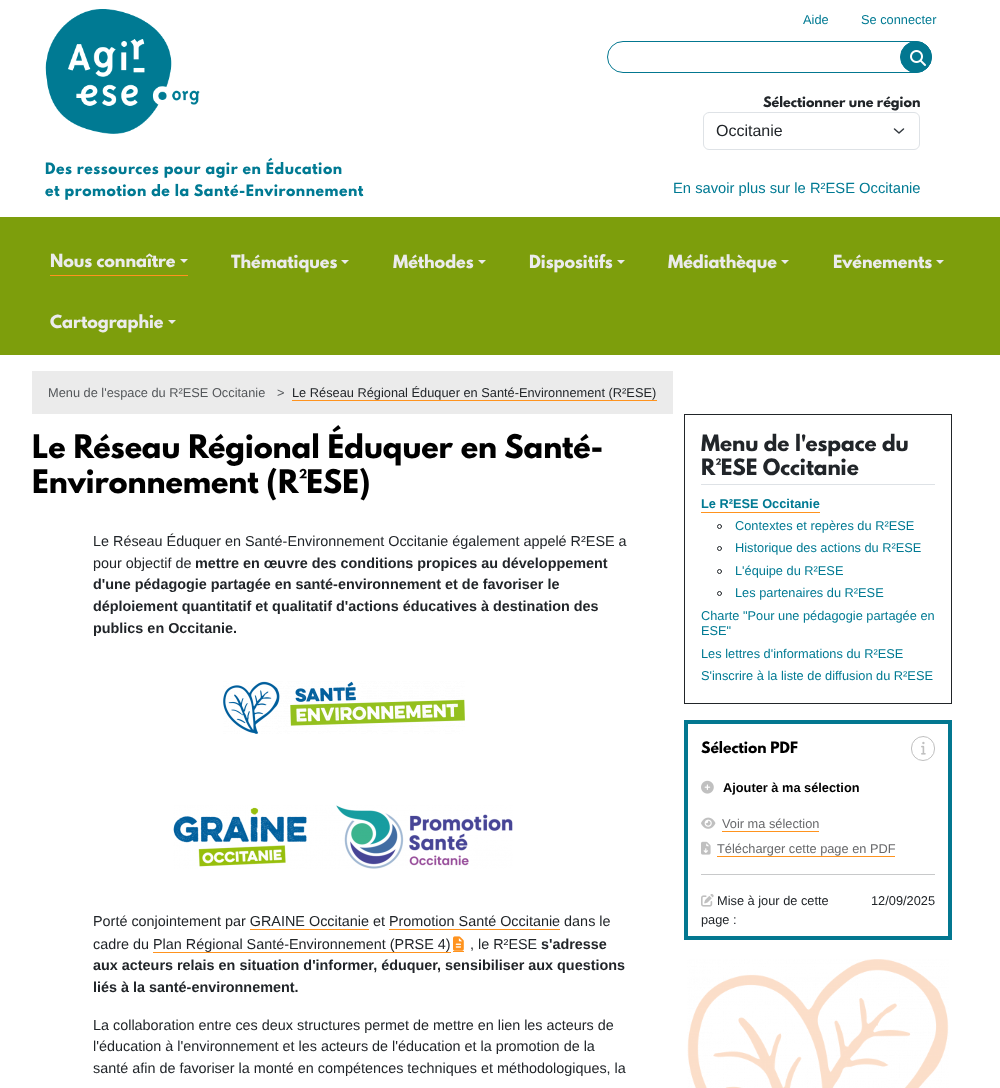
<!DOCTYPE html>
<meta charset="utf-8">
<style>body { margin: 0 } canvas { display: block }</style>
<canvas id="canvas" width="1000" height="1088"></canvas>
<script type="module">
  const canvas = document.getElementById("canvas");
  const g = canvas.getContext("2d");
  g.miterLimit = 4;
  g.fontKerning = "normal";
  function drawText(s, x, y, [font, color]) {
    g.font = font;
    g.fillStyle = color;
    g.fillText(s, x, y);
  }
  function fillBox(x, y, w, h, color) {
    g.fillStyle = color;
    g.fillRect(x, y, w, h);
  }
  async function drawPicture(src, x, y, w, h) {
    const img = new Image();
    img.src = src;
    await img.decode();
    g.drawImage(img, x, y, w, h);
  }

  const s1 = ["bold 14.1px League Spartan", "#007A93"];
  const s2 = ["12.8px Liberation Sans", "#007A93"];
  const s3 = ["bold 12.8px League Spartan", "#212529"];
  const s4 = ["16px Liberation Sans", "#212529"];
  const s5 = ["14.75px Liberation Sans", "#007A93"];
  const s6 = ["bold 16px League Spartan", "#EBEBEB"];
  const s7 = ["12.8px Liberation Sans", "#54575A"];
  const s8 = ["12.8px Liberation Sans", "#212529"];
  const s9 = ["bold 28.75px League Spartan", "#000000"];
  const s10 = ["14.4px Liberation Sans", "#212529"];
  const s11 = ["bold 14.4px Liberation Sans", "#212529"];
  const s12 = ["bold 20px League Spartan", "#212529"];
  const s13 = ["bold 12.8px Liberation Sans", "#007A93"];
  const s14 = ["bold 14px League Spartan", "#000000"];
  const s15 = ["bold 12.8px Liberation Sans", "#000000"];
  const s16 = ["12.8px Liberation Sans", "#68696B"];

  fillBox(0, 0, 1000, 1088, "#FFFFFF");
  await drawPicture("pic1.png", 45, 9, 155, 125);
  g.letterSpacing = "0.55px";
  drawText("Des ressources pour agir en Éducation", 45, 174, s1);
  drawText("et promotion de la Santé-Environnement", 45, 196, s1);
  g.letterSpacing = "0px";
  drawText("Aide", 803, 24, s2);
  drawText("Se connecter", 861, 24, s2);
  g.beginPath();
  g.roundRect(607.5, 41.5, 324, 31, 15.5);
  g.strokeStyle = "#037790";
  g.stroke();
  g.fillStyle = "#037790";
  g.beginPath();
  g.arc(916, 57, 15.5, 0, Math.PI * 2);
  g.fill();
  g.stroke();
  await drawPicture("pic2.png", 910, 50, 16, 16);
  drawText("Sélectionner une région", 763, 107, s3);
  g.beginPath();
  g.moveTo(894.5, 129);
  g.lineTo(899, 133);
  g.lineTo(903.5, 129);
  g.strokeStyle = "#343A40";
  g.lineWidth = 1.5;
  g.lineCap = "round";
  g.lineJoin = "round";
  g.stroke();
  g.beginPath();
  g.roundRect(703.5, 112.5, 216, 37, 5.5);
  g.strokeStyle = "#DEE2E6";
  g.lineWidth = 1;
  g.lineJoin = "miter";
  g.stroke();
  drawText("Occitanie", 716, 136, s4);
  drawText("En savoir plus sur le R²ESE Occitanie", 673, 193, s5);
  fillBox(0, 217, 1000, 138, "#7D9E0C");
  fillBox(50, 275, 138, 1, "#FF931E");
  drawText("Nous connaître", 50, 267, s6);
  g.beginPath();
  g.moveTo(180, 259);
  g.lineTo(188, 259);
  g.lineTo(184, 263);
  g.closePath();
  g.fill();
  drawText("Thématiques", 231, 268, s6);
  g.beginPath();
  g.moveTo(341, 260);
  g.lineTo(349, 260);
  g.lineTo(345, 264);
  g.closePath();
  g.fill();
  drawText("Méthodes", 393, 268, s6);
  g.beginPath();
  g.moveTo(478, 260);
  g.lineTo(486, 260);
  g.lineTo(482, 264);
  g.closePath();
  g.fill();
  drawText("Dispositifs", 529, 268, s6);
  g.beginPath();
  g.moveTo(617, 260);
  g.lineTo(625, 260);
  g.lineTo(621, 264);
  g.closePath();
  g.fill();
  drawText("Médiathèque", 668, 268, s6);
  g.beginPath();
  g.moveTo(781, 260);
  g.lineTo(789, 260);
  g.lineTo(785, 264);
  g.closePath();
  g.fill();
  drawText("Evénements", 833, 268, s6);
  g.beginPath();
  g.moveTo(936, 260);
  g.lineTo(944, 260);
  g.lineTo(940, 264);
  g.closePath();
  g.fill();
  drawText("Cartographie", 50, 328, s6);
  g.beginPath();
  g.moveTo(168, 320);
  g.lineTo(176, 320);
  g.lineTo(172, 324);
  g.closePath();
  g.fill();
  fillBox(32, 371, 641, 43, "#EBEBEB");
  drawText("Menu de l'espace du R²ESE Occitanie", 48, 397, s7);
  drawText(">", 277, 397, s7);
  drawText("Le Réseau Régional Éduquer en Santé-Environnement (R²ESE)", 292, 397, s8);
  fillBox(292, 400, 365, 1, "#FF931E");
  drawText("Le Réseau Régional Éduquer en Santé-", 32, 458, s9);
  drawText("Environnement (R²ESE)", 32, 493, s9);
  drawText("Le Réseau Éduquer en Santé-Environnement Occitanie également appelé R²ESE a", 93, 546, s10);
  drawText("pour objectif de", 93, 568, s10);
  drawText("mettre en œuvre des conditions propices au développement", 195, 568, s11);
  drawText("d'une pédagogie partagée en santé-environnement et de favoriser le", 93, 589, s11);
  drawText("déploiement quantitatif et qualitatif d'actions éducatives à destination des", 93, 611, s11);
  drawText("publics en Occitanie.", 93, 633, s11);
  await drawPicture("pic3.png", 223, 681, 242, 53);
  await drawPicture("pic4.png", 173, 805, 340, 64);
  drawText("Porté conjointement par GRAINE Occitanie et Promotion Santé Occitanie dans le", 93, 926, s10);
  fillBox(250, 929, 119, 1, "#FF931E");
  fillBox(389, 929, 171, 1, "#FF931E");
  drawText("cadre du Plan Régional Santé-Environnement (PRSE 4)", 93, 949, s10);
  fillBox(153, 952, 298, 1, "#FF931E");
  fillBox(453, 951, 11, 1, "#FF931E");
  await drawPicture("pic5.png", 453, 936, 11, 15);
  drawText(", le R²ESE", 470, 949, s10);
  drawText("s'adresse", 541, 949, s11);
  drawText("aux acteurs relais en situation d'informer, éduquer, sensibiliser aux questions", 93, 970, s11);
  drawText("liés à la santé-environnement.", 93, 992, s11);
  drawText("La collaboration entre ces deux structures permet de mettre en lien les acteurs de", 93, 1030, s10);
  drawText("l'éducation à l'environnement et les acteurs de l'éducation et la promotion de la", 93, 1051, s10);
  drawText("santé afin de favoriser la monté en compétences techniques et méthodologiques, la", 93, 1073, s10);
  g.strokeStyle = "#212529";
  g.strokeRect(684.5, 414.5, 267, 289);
  fillBox(701, 484, 234, 1, "#DEE2E6");
  drawText("Menu de l'espace du", 701, 451, s12);
  drawText("R²ESE Occitanie", 701, 475, s12);
  fillBox(701, 512, 119, 1, "#FF931E");
  drawText("Le R²ESE Occitanie", 701, 508, s13);
  g.beginPath();
  g.arc(719.5, 526.5, 2, 0, Math.PI * 2);
  g.stroke();
  drawText("Contextes et repères du R²ESE", 735, 530, s2);
  g.beginPath();
  g.arc(719.5, 548.5, 2, 0, Math.PI * 2);
  g.stroke();
  drawText("Historique des actions du R²ESE", 735, 552, s2);
  g.beginPath();
  g.arc(719.5, 571.5, 2, 0, Math.PI * 2);
  g.stroke();
  drawText("L'équipe du R²ESE", 735, 575, s2);
  g.beginPath();
  g.arc(719.5, 593.5, 2, 0, Math.PI * 2);
  g.stroke();
  drawText("Les partenaires du R²ESE", 735, 597, s2);
  drawText("Charte \"Pour une pédagogie partagée en", 701, 620, s2);
  drawText("ESE\"", 701, 635, s2);
  drawText("Les lettres d'informations du R²ESE", 701, 658, s2);
  drawText("S'inscrire à la liste de diffusion du R²ESE", 701, 680, s2);
  g.strokeStyle = "#037790";
  g.lineWidth = 4;
  g.strokeRect(686, 722, 264, 216);
  drawText("Sélection PDF", 701, 753, s14);
  g.beginPath();
  g.roundRect(911.5, 736.5, 23, 24, 11.5);
  g.strokeStyle = "#C0C0C0";
  g.lineWidth = 1;
  g.stroke();
  await drawPicture("pic6.png", 921, 741, 5, 14);
  await drawPicture("pic7.png", 701, 780, 13, 14);
  drawText("Ajouter à ma sélection", 723, 792, s15);
  await drawPicture("pic8.png", 701, 817, 15, 12);
  drawText("Voir ma sélection", 722, 828, s16);
  fillBox(722, 831, 97, 1, "#FF931E");
  await drawPicture("pic9.png", 701, 841, 10, 14);
  drawText("Télécharger cette page en PDF", 717, 853, s16);
  fillBox(717, 856, 178, 1, "#FF931E");
  fillBox(701, 874, 234, 1, "#C8C9CA");
  await drawPicture("pic10.png", 701, 894, 13, 13);
  drawText("Mise à jour de cette", 717, 905, s8);
  drawText("page :", 701, 924, s8);
  drawText("12/09/2025", 871, 905, s8);
  await drawPicture("pic11.png", 687, 959, 262, 129);
</script>
